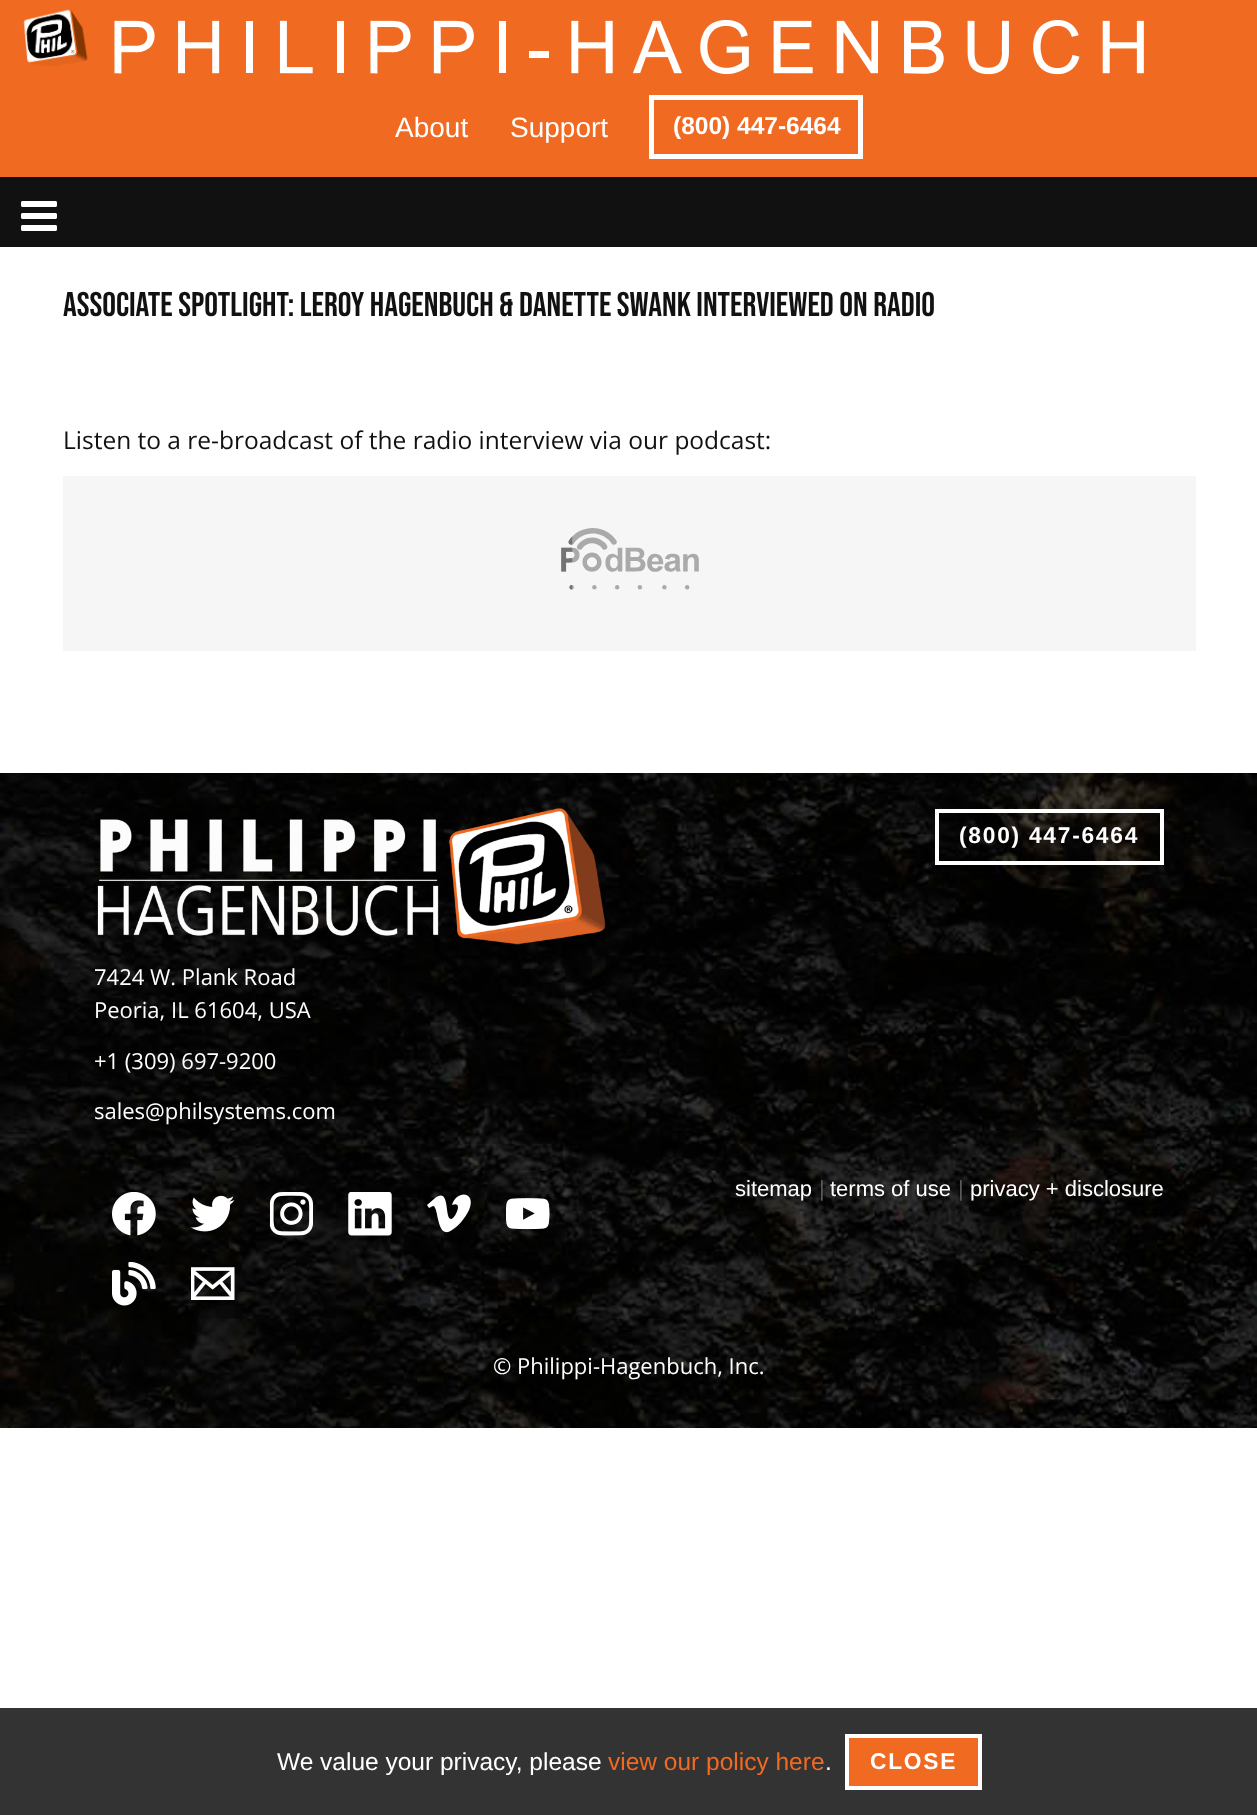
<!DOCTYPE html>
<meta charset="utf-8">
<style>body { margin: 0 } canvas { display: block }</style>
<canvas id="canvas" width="1257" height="1815"></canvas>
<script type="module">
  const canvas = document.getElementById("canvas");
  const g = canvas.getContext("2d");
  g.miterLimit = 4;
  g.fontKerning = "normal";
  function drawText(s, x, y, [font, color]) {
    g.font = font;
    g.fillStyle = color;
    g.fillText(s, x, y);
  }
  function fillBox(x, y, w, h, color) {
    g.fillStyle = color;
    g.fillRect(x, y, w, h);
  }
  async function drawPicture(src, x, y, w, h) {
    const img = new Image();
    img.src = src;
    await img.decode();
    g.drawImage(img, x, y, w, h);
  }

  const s1 = ["28px Liberation Sans", "#FFFFFF"];
  const s2 = ["bold 24.5px Liberation Sans", "#FFFFFF"];
  const s3 = ["34.3px Bebas Neue", "#111111"];
  const s4 = ["24.5px Open Sans", "#111111"];
  const s5 = ["24.5px Liberation Sans", "#FFFFFF"];
  const s6 = ["24.5px Liberation Sans", "#F16A21"];
  const s7 = ["bold 22.75px Liberation Sans", "#FFFFFF"];
  const s8 = ["22px Open Sans", "#FFFFFF"];
  const s9 = ["22px Liberation Sans", "#FFFFFF"];
  const s10 = ["22px Liberation Sans", "#595959"];

  fillBox(0, 0, 1257, 1815, "#FFFFFF");
  fillBox(0, 0, 1257, 177, "#F16A21");
  await drawPicture("pic1.png", 23, 9, 65, 58);
  await drawPicture("pic2.png", 114, 20, 1030, 55);
  drawText("About", 395, 137, s1);
  drawText("Support", 510, 137, s1);
  g.strokeStyle = "#FFFFFF";
  g.lineWidth = 5;
  g.strokeRect(651.5, 97.5, 209, 59);
  drawText("(800) 447-6464", 673, 134, s2);
  fillBox(0, 177, 1257, 70, "#111111");
  await drawPicture("pic3.png", 21, 201, 36, 30);
  drawText("Associate Spotlight: LeRoy Hagenbuch & Danette Swank Interviewed on Radio", 63, 316, s3);
  drawText("Listen to a re-broadcast of the radio interview via our podcast:", 63, 449, s4);
  await drawPicture("pic4.png", 63, 476, 1133, 175);
  fillBox(0, 1708, 1257, 107, "#333333");
  drawText("We value your privacy, please", 277, 1770, s5);
  drawText("view our policy here", 608, 1770, s6);
  drawText(".", 825, 1770, s5);
  g.fillStyle = "#F16A21";
  g.beginPath();
  g.rect(847, 1736, 133, 52);
  g.fill();
  g.lineWidth = 4;
  g.stroke();
  g.letterSpacing = "1.75px";
  drawText("CLOSE", 870, 1769, s7);
  await drawPicture("pic5.png", 0, 773, 1257, 655);
  g.strokeRect(937, 811, 225, 52);
  drawText("(800) 447-6464", 959, 843, s7);
  await drawPicture("pic6.png", 97, 808, 509, 137);
  g.letterSpacing = "0px";
  drawText("7424 W. Plank Road", 94, 985, s8);
  drawText("Peoria, IL 61604, USA", 94, 1018, s8);
  drawText("+1 (309) 697-9200", 94, 1069, s8);
  drawText("sales@philsystems.com", 94, 1119, s8);
  await drawPicture("pic7.png", 112, 1192, 44, 44);
  await drawPicture("pic8.png", 191, 1195, 44, 37);
  await drawPicture("pic9.png", 270, 1192, 43, 44);
  await drawPicture("pic10.png", 348, 1192, 44, 44);
  g.beginPath();
  g.moveTo(469, 1210);
  g.bezierCurveTo(465, 1218, 459, 1226, 452, 1230);
  g.bezierCurveTo(436, 1241, 439, 1206, 433, 1206);
  g.lineTo(429, 1208);
  g.lineTo(427, 1205);
  g.lineTo(434, 1199);
  g.bezierCurveTo(451, 1185, 444, 1219, 451, 1219);
  g.bezierCurveTo(455, 1219, 464, 1200, 452, 1205);
  g.bezierCurveTo(457, 1189, 477, 1192, 469, 1210);
  g.closePath();
  g.fill();
  await drawPicture("pic11.png", 506, 1198, 44, 32);
  await drawPicture("pic12.png", 112, 1262, 44, 44);
  await drawPicture("pic13.png", 191, 1267, 44, 33);
  drawText("sitemap", 735, 1196, s9);
  drawText("|", 819, 1196, s10);
  drawText("terms of use", 830, 1196, s9);
  drawText("|", 958, 1196, s10);
  drawText("privacy + disclosure", 970, 1196, s9);
  drawText("© Philippi-Hagenbuch, Inc.", 493, 1374, s8);
</script>
